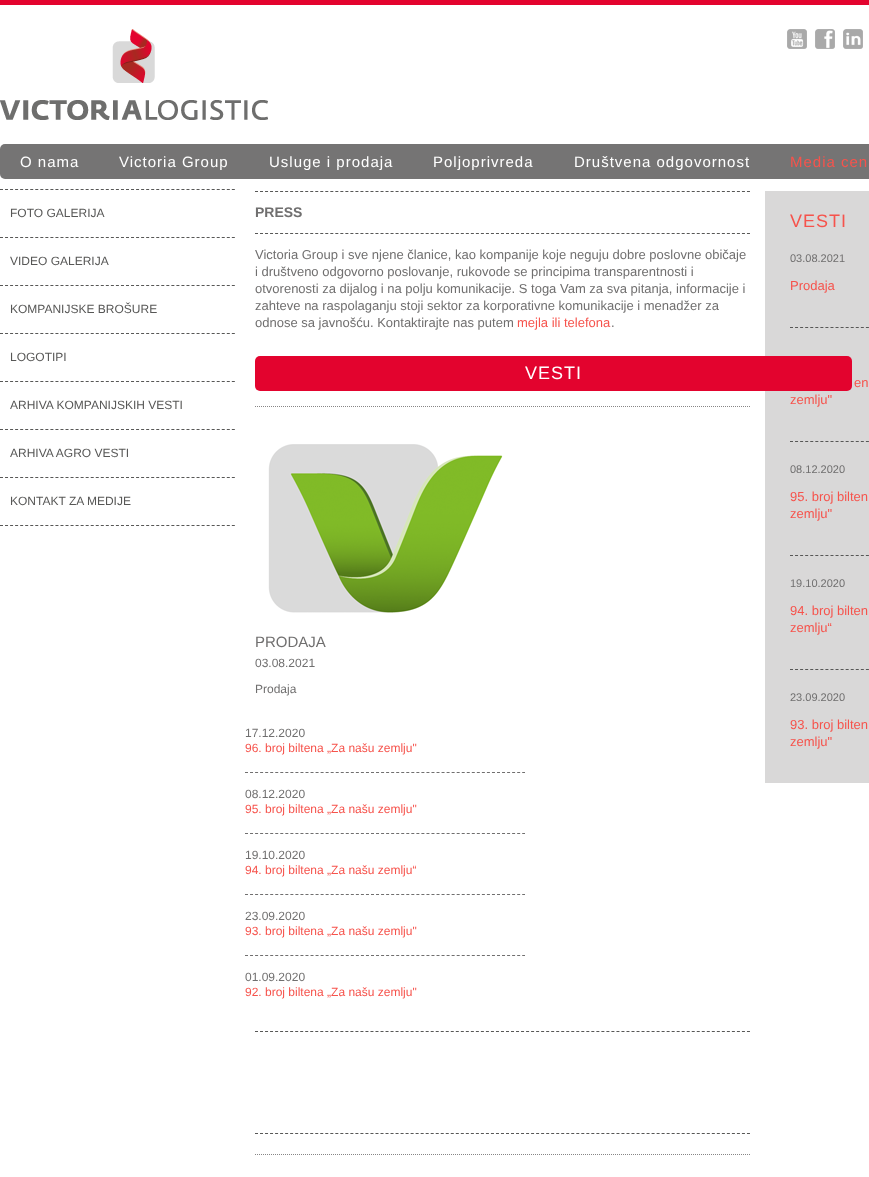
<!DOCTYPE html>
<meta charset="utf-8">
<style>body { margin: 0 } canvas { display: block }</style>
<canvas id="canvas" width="869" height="1177"></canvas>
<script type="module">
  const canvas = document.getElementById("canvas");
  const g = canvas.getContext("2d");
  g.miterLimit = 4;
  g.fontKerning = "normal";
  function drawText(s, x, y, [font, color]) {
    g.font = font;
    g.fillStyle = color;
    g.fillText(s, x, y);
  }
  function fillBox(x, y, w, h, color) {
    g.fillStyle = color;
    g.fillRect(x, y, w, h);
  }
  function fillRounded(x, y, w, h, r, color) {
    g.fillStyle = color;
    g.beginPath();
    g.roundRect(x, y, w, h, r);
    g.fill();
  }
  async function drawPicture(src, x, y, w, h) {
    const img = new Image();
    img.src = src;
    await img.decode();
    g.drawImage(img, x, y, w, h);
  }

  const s1 = ["15px Liberation Sans", "#FFFFFF"];
  const s2 = ["15px Liberation Sans", "#F6534C"];
  const s3 = ["12px Liberation Sans", "#575756"];
  const s4 = ["bold 14px Liberation Sans", "#706F6F"];
  const s5 = ["13px Liberation Sans", "#706F6F"];
  const s6 = ["13px Liberation Sans", "#F6534C"];
  const s7 = ["18px Liberation Sans", "#FFFFFF"];
  const s8 = ["15px Liberation Sans", "#706F6F"];
  const s9 = ["12px Liberation Sans", "#706F6F"];
  const s10 = ["12px Liberation Sans", "#F6534C"];
  const s11 = ["18px Liberation Sans", "#F6534C"];
  const s12 = ["11px Liberation Sans", "#706F6F"];

  fillBox(0, 0, 869, 1177, "#FFFFFF");
  fillBox(0, 0, 869, 5, "#E3032E");
  await drawPicture("pic1.png", 0, 29, 268, 91);
  await drawPicture("pic2.png", 787, 29, 20, 20);
  await drawPicture("pic3.png", 815, 29, 20, 20);
  await drawPicture("pic4.png", 843, 29, 20, 20);
  fillRounded(0, 144, 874, 35, 5, "#757474");
  g.letterSpacing = "1px";
  drawText("O nama", 20, 167, s1);
  drawText("Victoria Group", 119, 167, s1);
  drawText("Usluge i prodaja", 269, 167, s1);
  drawText("Poljoprivreda", 433, 167, s1);
  drawText("Društvena odgovornost", 574, 167, s1);
  drawText("Media cen", 790, 167, s2);
  g.beginPath();
  g.moveTo(0, 525.5);
  g.lineTo(235, 525.5);
  g.strokeStyle = "#575756";
  g.setLineDash([3, 2.04]);
  g.stroke();
  g.beginPath();
  g.moveTo(0, 189.5);
  g.lineTo(235, 189.5);
  g.stroke();
  g.letterSpacing = "0px";
  drawText("FOTO GALERIJA", 10, 217, s3);
  g.beginPath();
  g.moveTo(0, 237.5);
  g.lineTo(235, 237.5);
  g.stroke();
  drawText("VIDEO GALERIJA", 10, 265, s3);
  g.beginPath();
  g.moveTo(0, 285.5);
  g.lineTo(235, 285.5);
  g.stroke();
  drawText("KOMPANIJSKE BROŠURE", 10, 313, s3);
  g.beginPath();
  g.moveTo(0, 333.5);
  g.lineTo(235, 333.5);
  g.stroke();
  drawText("LOGOTIPI", 10, 361, s3);
  g.beginPath();
  g.moveTo(0, 381.5);
  g.lineTo(235, 381.5);
  g.stroke();
  drawText("ARHIVA KOMPANIJSKIH VESTI", 10, 409, s3);
  g.beginPath();
  g.moveTo(0, 429.5);
  g.lineTo(235, 429.5);
  g.stroke();
  drawText("ARHIVA AGRO VESTI", 10, 457, s3);
  g.beginPath();
  g.moveTo(0, 477.5);
  g.lineTo(235, 477.5);
  g.stroke();
  drawText("KONTAKT ZA MEDIJE", 10, 505, s3);
  g.beginPath();
  g.moveTo(255, 191.5);
  g.lineTo(750, 191.5);
  g.setLineDash([3, 2.02]);
  g.stroke();
  g.beginPath();
  g.moveTo(255, 233.5);
  g.lineTo(750, 233.5);
  g.stroke();
  drawText("PRESS", 255, 217, s4);
  drawText("Victoria Group i sve njene članice, kao kompanije koje neguju dobre poslovne običaje", 255, 259, s5);
  drawText("i društveno odgovorno poslovanje, rukovode se principima transparentnosti i", 255, 276, s5);
  drawText("otvorenosti za dijalog i na polju komunikacije. S toga Vam za sva pitanja, informacije i", 255, 293, s5);
  drawText("zahteve na raspolaganju stoji sektor za korporativne komunikacije i menadžer za", 255, 310, s5);
  drawText("odnose sa javnošću. Kontaktirajte nas putem", 255, 327, s5);
  drawText("mejla ili telefona", 517, 327, s6);
  drawText(".", 611, 327, s5);
  fillBox(765, 191, 104, 592, "#D9D8D8");
  fillRounded(255, 356, 597, 35, 5, "#E3032E");
  g.letterSpacing = "1px";
  drawText("VESTI", 525, 379, s7);
  g.beginPath();
  g.moveTo(255, 406.5);
  g.lineTo(750, 406.5);
  g.strokeStyle = "#878686";
  g.setLineDash([1, 1]);
  g.stroke();
  await drawPicture("pic5.png", 268, 444, 235, 169);
  g.letterSpacing = "0px";
  drawText("PRODAJA", 255, 647, s8);
  drawText("03.08.2021", 255, 667, s9);
  drawText("Prodaja", 255, 693, s9);
  drawText("17.12.2020", 245, 737, s9);
  g.beginPath();
  g.moveTo(245, 772.5);
  g.lineTo(525, 772.5);
  g.strokeStyle = "#706F6F";
  g.setLineDash([3, 2.04]);
  g.stroke();
  drawText("96. broj biltena „Za našu zemlju\"", 245, 752, s10);
  drawText("08.12.2020", 245, 798, s9);
  g.beginPath();
  g.moveTo(245, 833.5);
  g.lineTo(525, 833.5);
  g.stroke();
  drawText("95. broj biltena „Za našu zemlju\"", 245, 813, s10);
  drawText("19.10.2020", 245, 859, s9);
  g.beginPath();
  g.moveTo(245, 894.5);
  g.lineTo(525, 894.5);
  g.stroke();
  drawText("94. broj biltena „Za našu zemlju“", 245, 874, s10);
  drawText("23.09.2020", 245, 920, s9);
  g.beginPath();
  g.moveTo(245, 955.5);
  g.lineTo(525, 955.5);
  g.stroke();
  drawText("93. broj biltena „Za našu zemlju\"", 245, 935, s10);
  drawText("01.09.2020", 245, 981, s9);
  drawText("92. broj biltena „Za našu zemlju\"", 245, 996, s10);
  g.beginPath();
  g.moveTo(255, 1031.5);
  g.lineTo(750, 1031.5);
  g.strokeStyle = "#575756";
  g.setLineDash([3, 2.02]);
  g.stroke();
  g.beginPath();
  g.moveTo(255, 1133.5);
  g.lineTo(750, 1133.5);
  g.stroke();
  g.beginPath();
  g.moveTo(255, 1154.5);
  g.lineTo(750, 1154.5);
  g.strokeStyle = "#878686";
  g.setLineDash([1, 1]);
  g.stroke();
  g.letterSpacing = "1px";
  drawText("VESTI", 790, 227, s11);
  g.beginPath();
  g.moveTo(790, 327.5);
  g.lineTo(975, 327.5);
  g.strokeStyle = "#575756";
  g.setLineDash([3, 2.06]);
  g.stroke();
  g.letterSpacing = "0px";
  drawText("03.08.2021", 790, 262, s12);
  drawText("Prodaja", 790, 290, s6);
  g.beginPath();
  g.moveTo(790, 441.5);
  g.lineTo(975, 441.5);
  g.stroke();
  drawText("en", 854, 387, s6);
  drawText("zemlju\"", 790, 404, s6);
  g.beginPath();
  g.moveTo(790, 555.5);
  g.lineTo(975, 555.5);
  g.stroke();
  drawText("08.12.2020", 790, 473, s12);
  drawText("95. broj bilten", 790, 501, s6);
  drawText("zemlju\"", 790, 518, s6);
  g.beginPath();
  g.moveTo(790, 669.5);
  g.lineTo(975, 669.5);
  g.stroke();
  drawText("19.10.2020", 790, 587, s12);
  drawText("94. broj bilten", 790, 615, s6);
  drawText("zemlju“", 790, 632, s6);
  drawText("23.09.2020", 790, 701, s12);
  drawText("93. broj bilten", 790, 729, s6);
  drawText("zemlju\"", 790, 746, s6);
</script>
